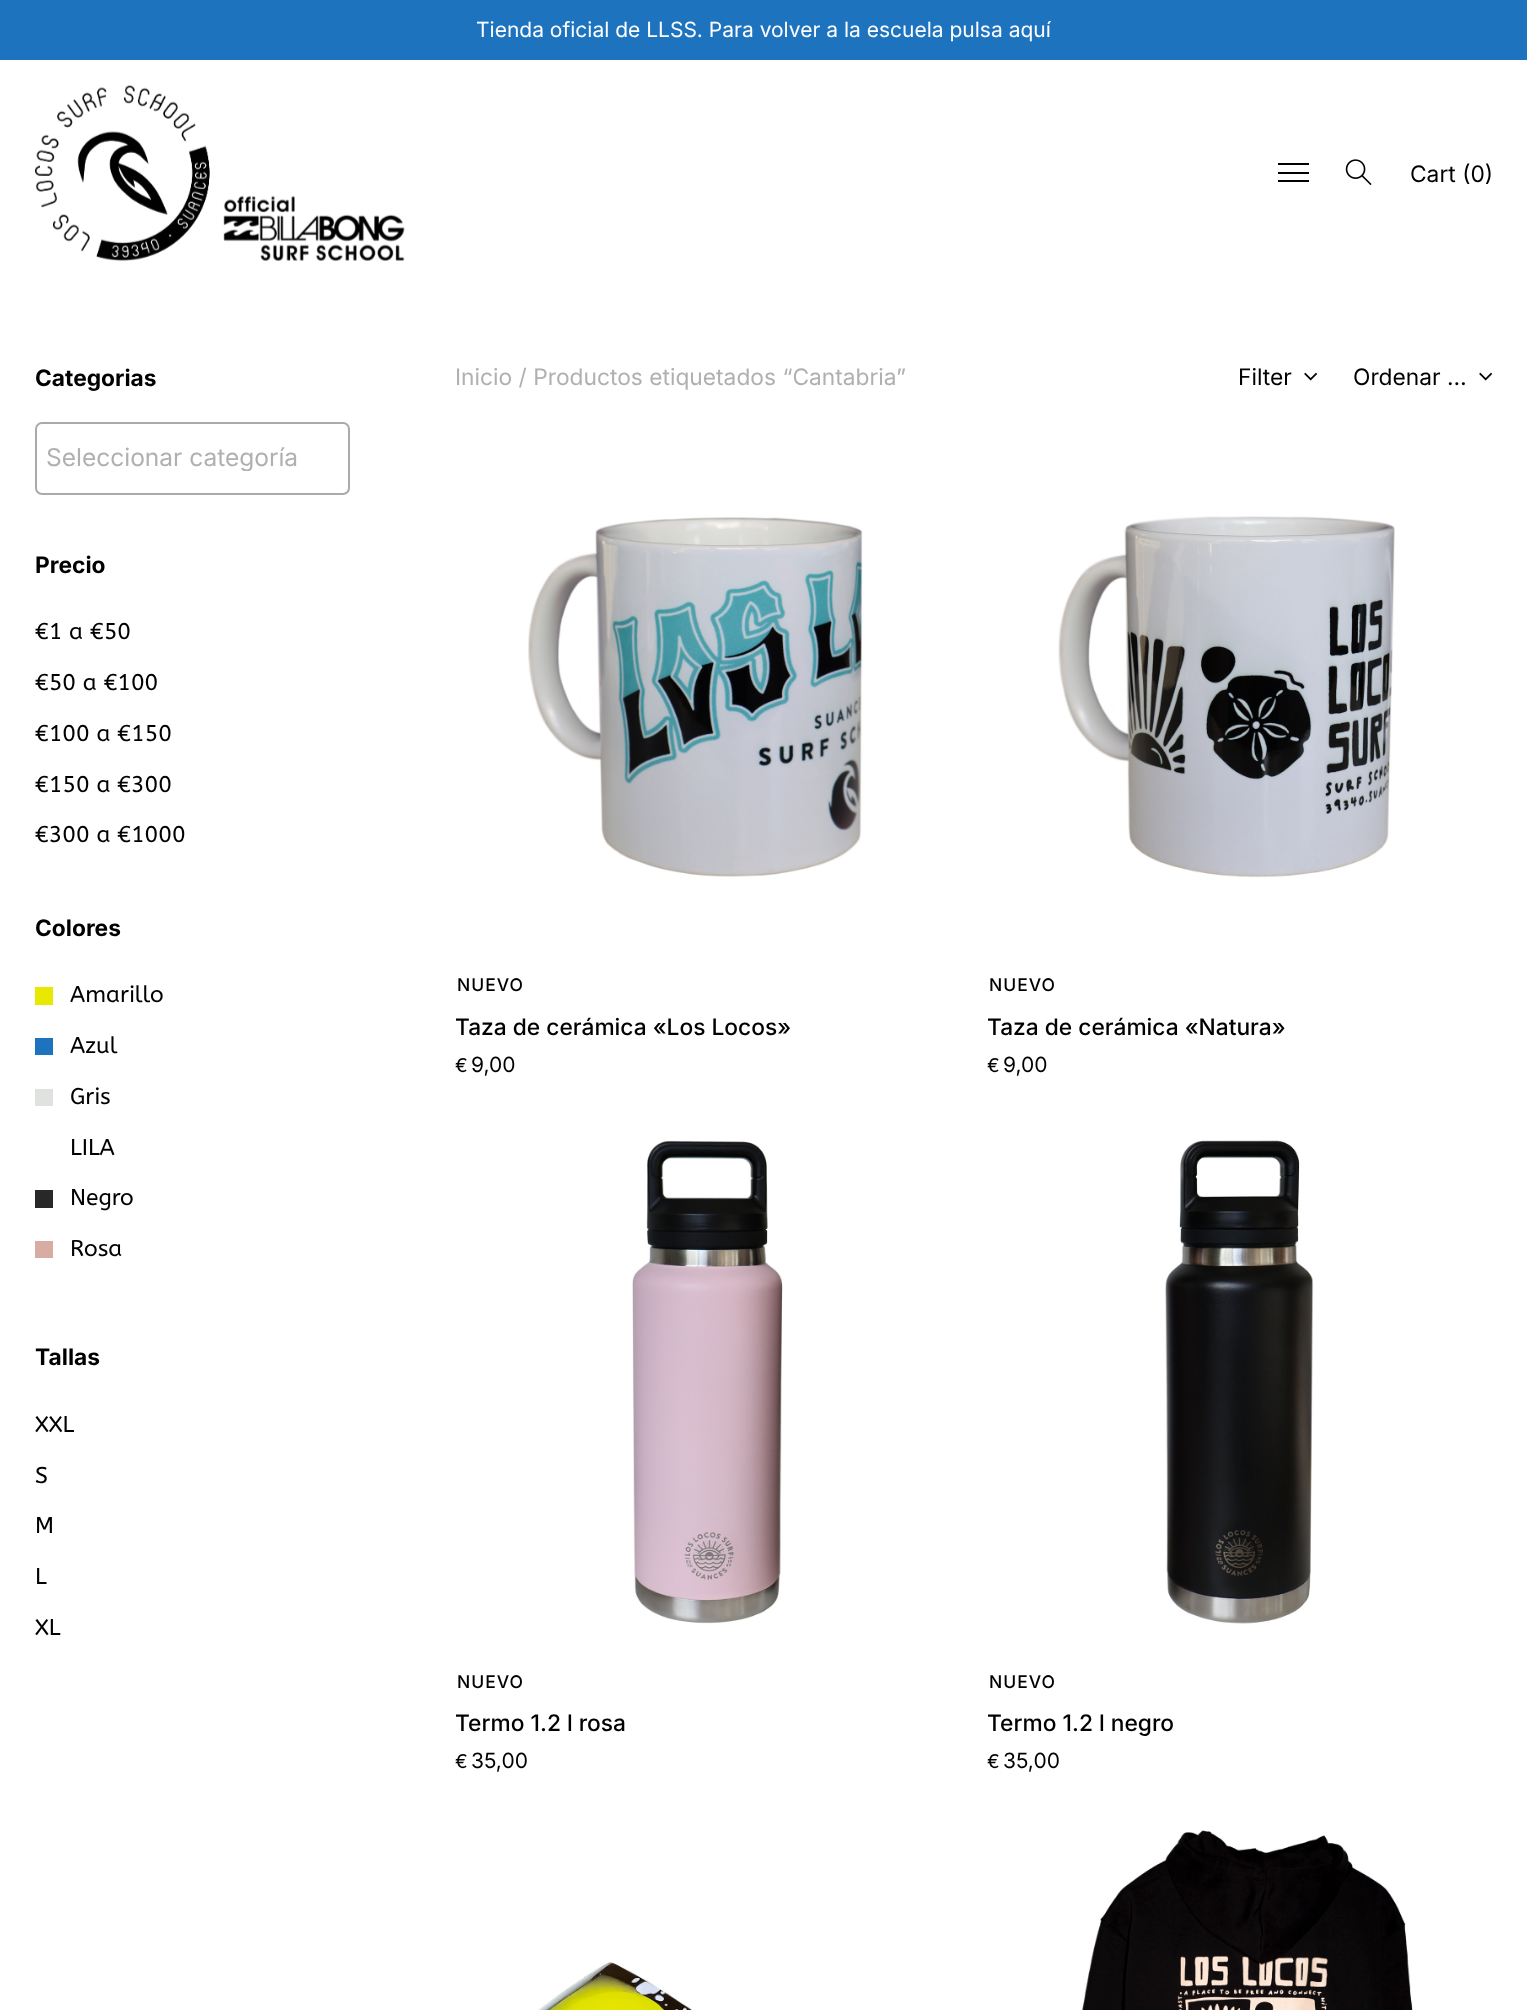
<!DOCTYPE html>
<meta charset="utf-8">
<style>body { margin: 0 } canvas { display: block }</style>
<canvas id="canvas" width="1527" height="2010"></canvas>
<script type="module">
  const canvas = document.getElementById("canvas");
  const g = canvas.getContext("2d");
  g.miterLimit = 4;
  g.fontKerning = "normal";
  function drawText(s, x, y, [font, color]) {
    g.font = font;
    g.fillStyle = color;
    g.fillText(s, x, y);
  }
  function fillBox(x, y, w, h, color) {
    g.fillStyle = color;
    g.fillRect(x, y, w, h);
  }
  async function drawPicture(src, x, y, w, h) {
    const img = new Image();
    img.src = src;
    await img.decode();
    g.drawImage(img, x, y, w, h);
  }

  const s1 = ["21px Inter", "#FFFFFF"];
  const s2 = ["22.75px Inter", "#000000"];
  const s3 = ["bold 22.75px Inter", "#000000"];
  const s4 = ["24.5px Inter", "#B0B0B0"];
  const s5 = ["22.75px ABeeZee", "#000000"];
  const s6 = ["22.75px Inter", "#B0B0B0"];
  const s7 = ["500 17.5px Inter", "#000000"];
  const s8 = ["500 22.75px Inter", "#000000"];
  const s9 = ["19px Inter", "#000000"];
  const s10 = ["21px Inter", "#000000"];

  fillBox(0, 0, 1527, 2010, "#FFFFFF");
  fillBox(0, 0, 1527, 60, "#1E73BE");
  drawText("Tienda oficial de LLSS. Para volver a la escuela pulsa aquí", 476, 37, s1);
  await drawPicture("pic1.png", 35, 85, 370, 176);
  fillBox(1278, 172, 31, 2, "#000000");
  fillBox(1278, 163, 31, 2, "#000000");
  fillBox(1278, 180, 31, 2, "#000000");
  await drawPicture("pic2.png", 1345, 159, 27, 27);
  drawText("Cart (0)", 1410, 182, s2);
  drawText("Categorias", 35, 386, s3);
  g.beginPath();
  g.roundRect(36, 423, 313, 71, 6);
  g.strokeStyle = "#AAAAAA";
  g.lineWidth = 2;
  g.stroke();
  g.save();
  g.beginPath();
  g.rect(46, 441, 302, 30);
  g.clip();
  drawText("Seleccionar categoría", 46, 466, s4);
  g.restore();
  drawText("Precio", 35, 573, s3);
  drawText("€1 a €50", 35, 639, s5);
  drawText("€50 a €100", 35, 690, s5);
  drawText("€100 a €150", 35, 741, s5);
  drawText("€150 a €300", 35, 792, s5);
  drawText("€300 a €1000", 35, 842, s5);
  drawText("Colores", 35, 936, s3);
  fillBox(35, 987, 18, 18, "#E8E800");
  drawText("Amarillo", 70, 1002, s5);
  fillBox(35, 1038, 18, 17, "#1E73BE");
  drawText("Azul", 70, 1053, s5);
  fillBox(35, 1089, 18, 17, "#E0E2DF");
  drawText("Gris", 70, 1104, s5);
  drawText("LILA", 70, 1155, s5);
  fillBox(35, 1190, 18, 18, "#282828");
  drawText("Negro", 70, 1205, s5);
  fillBox(35, 1241, 18, 17, "#D8ACA3");
  drawText("Rosa", 70, 1256, s5);
  drawText("Tallas", 35, 1365, s3);
  drawText("XXL", 35, 1432, s5);
  drawText("S", 35, 1483, s5);
  drawText("M", 35, 1533, s5);
  drawText("L", 35, 1584, s5);
  drawText("XL", 35, 1635, s5);
  drawText("Inicio / Productos etiquetados “Cantabria”", 455, 385, s6);
  await drawPicture("pic3.png", 1304, 372, 14, 9);
  drawText("Filter", 1238, 385, s2);
  await drawPicture("pic3.png", 1479, 372, 14, 9);
  drawText("Ordenar …", 1353, 385, s2);
  await drawPicture("pic4.png", 528, 517, 335, 360);
  g.letterSpacing = "1px";
  drawText("NUEVO", 457, 991, s7);
  g.letterSpacing = "0px";
  drawText("Taza de cerámica «Los Locos»", 455, 1035, s8);
  drawText("€", 455, 1072, s9);
  drawText("9,00", 471, 1072, s10);
  await drawPicture("pic5.png", 1058, 516, 337, 362);
  g.letterSpacing = "1px";
  drawText("NUEVO", 989, 991, s7);
  g.letterSpacing = "0px";
  drawText("Taza de cerámica «Natura»", 987, 1035, s8);
  drawText("€", 987, 1072, s9);
  drawText("9,00", 1003, 1072, s10);
  await drawPicture("pic6.png", 632, 1140, 151, 484);
  g.letterSpacing = "1px";
  drawText("NUEVO", 457, 1688, s7);
  g.letterSpacing = "0px";
  drawText("Termo 1.2 l rosa", 455, 1731, s8);
  drawText("€", 455, 1768, s9);
  drawText("35,00", 471, 1768, s10);
  await drawPicture("pic7.png", 1165, 1140, 149, 484);
  g.letterSpacing = "1px";
  drawText("NUEVO", 989, 1688, s7);
  g.letterSpacing = "0px";
  drawText("Termo 1.2 l negro", 987, 1731, s8);
  drawText("€", 987, 1768, s9);
  drawText("35,00", 1003, 1768, s10);
  await drawPicture("pic8.png", 538, 1962, 154, 48);
  await drawPicture("pic9.png", 1082, 1830, 331, 180);
</script>
